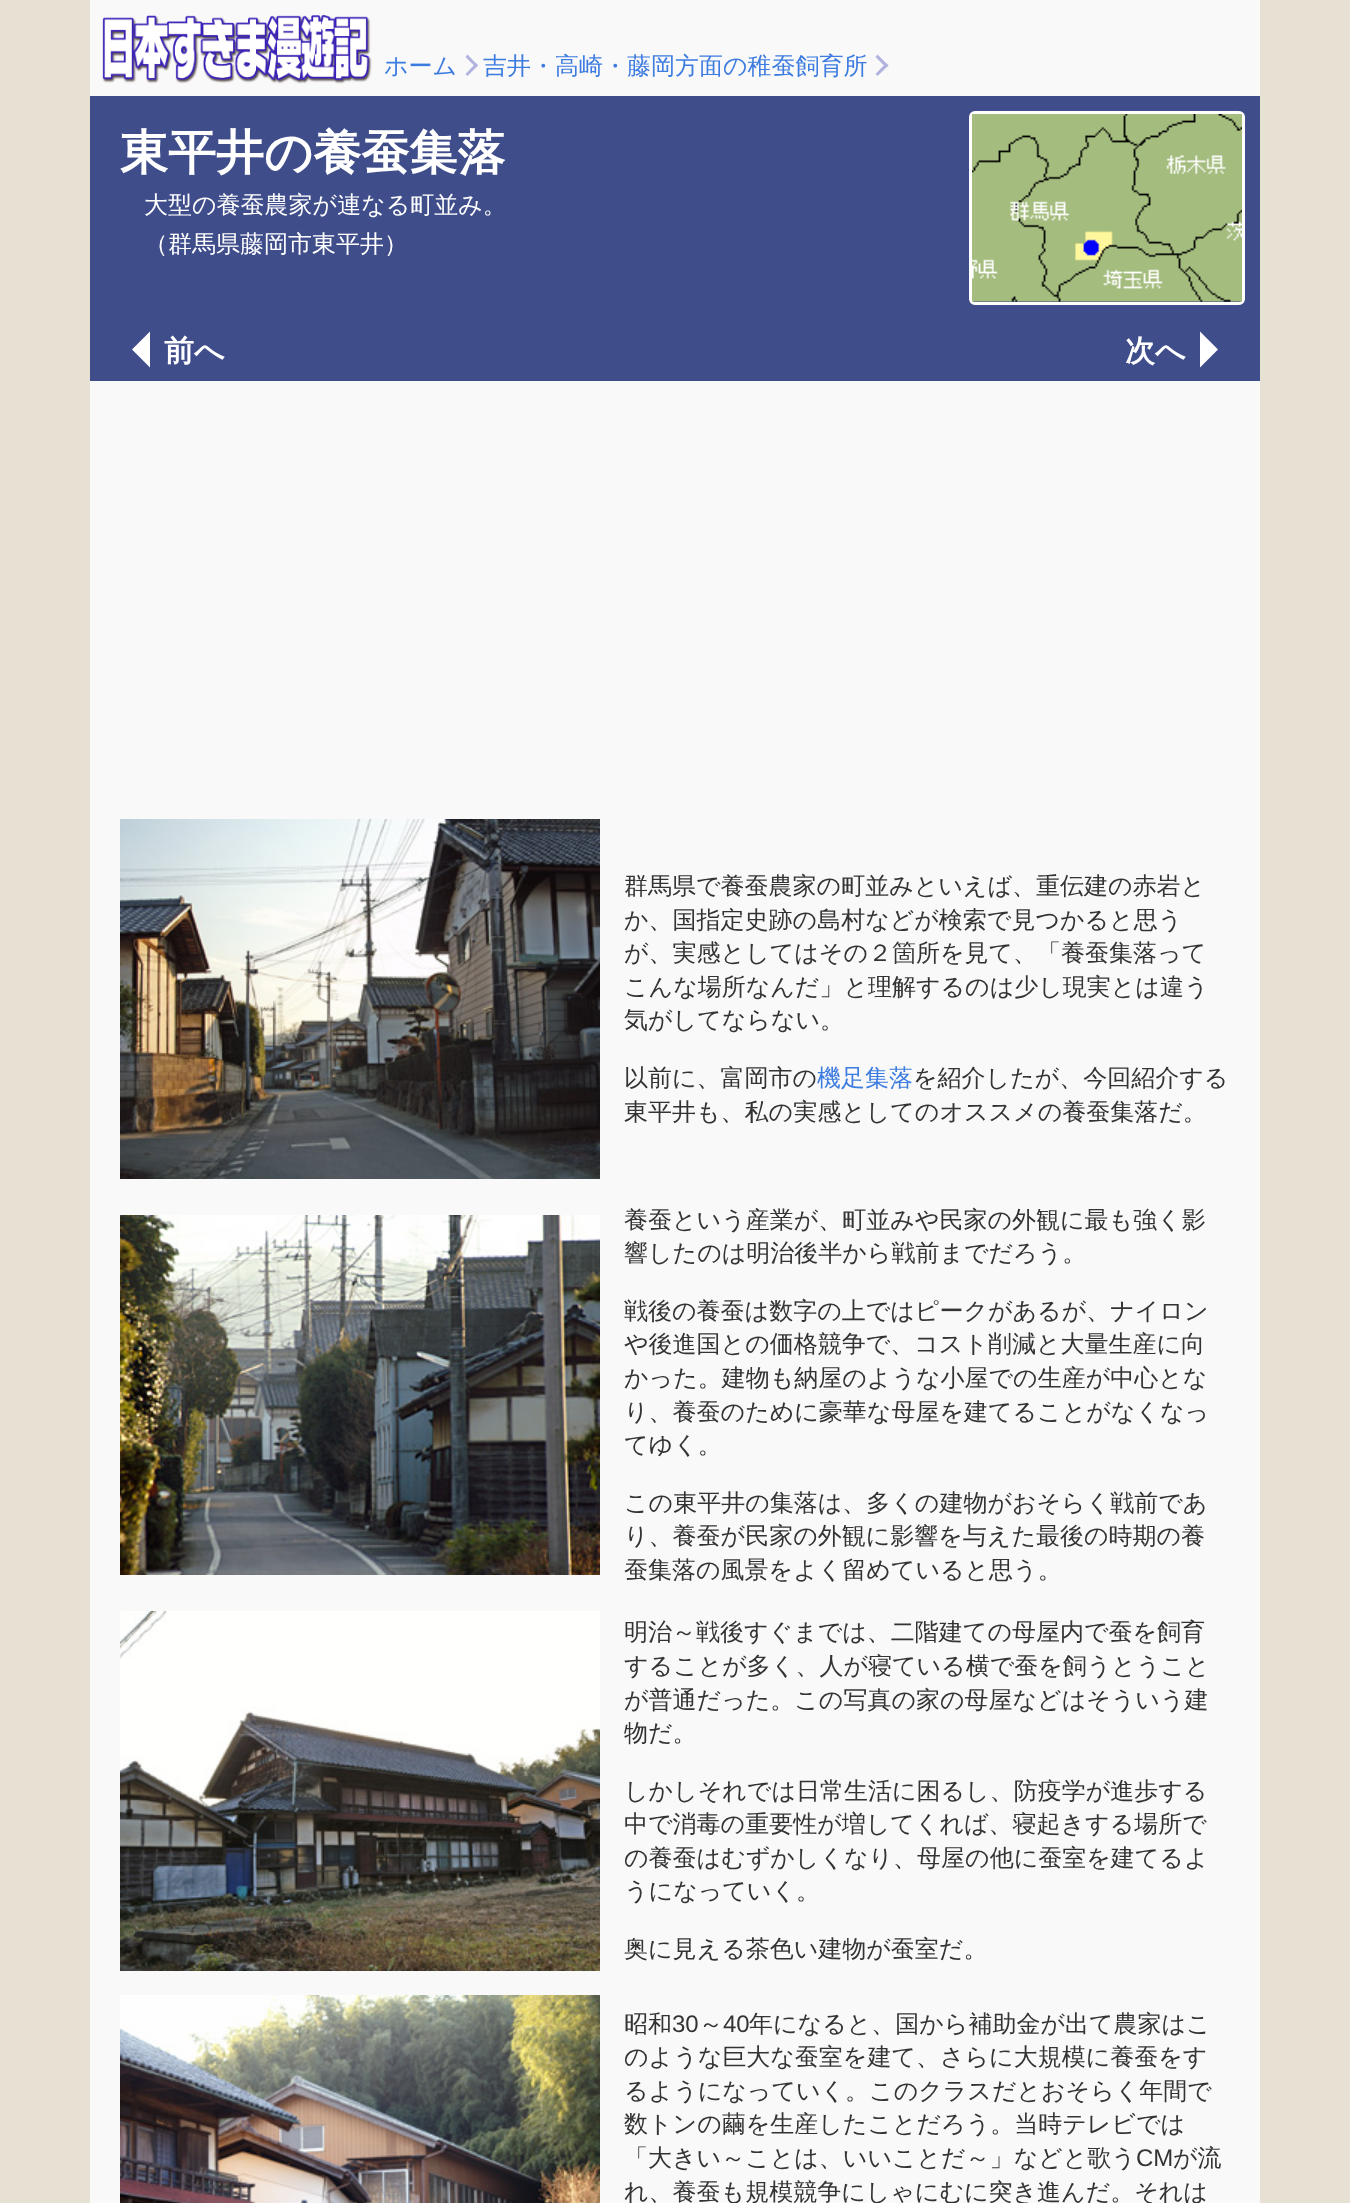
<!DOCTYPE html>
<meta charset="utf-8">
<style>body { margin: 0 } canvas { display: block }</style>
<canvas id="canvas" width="1350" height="2203"></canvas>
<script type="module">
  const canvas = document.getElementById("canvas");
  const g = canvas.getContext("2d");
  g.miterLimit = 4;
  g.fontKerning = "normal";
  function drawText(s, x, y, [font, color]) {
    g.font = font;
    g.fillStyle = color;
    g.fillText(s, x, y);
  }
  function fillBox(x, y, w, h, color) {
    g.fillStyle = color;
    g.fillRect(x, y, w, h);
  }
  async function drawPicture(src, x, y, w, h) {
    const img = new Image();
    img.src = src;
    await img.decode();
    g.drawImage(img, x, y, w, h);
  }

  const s1 = ["500 24px WenQuanYi Zen Hei", "#3C7BE0"];
  const s2 = ["bold 48px WenQuanYi Zen Hei", "#FFFFFF"];
  const s3 = ["500 24px WenQuanYi Zen Hei", "#FFFFFF"];
  const s4 = ["bold 30px WenQuanYi Zen Hei", "#FFFFFF"];
  const s5 = ["500 24px WenQuanYi Zen Hei", "#333333"];
  const s6 = ["24px Liberation Sans", "#333333"];

  fillBox(0, 0, 1350, 2203, "#E6E1D2");
  fillBox(90, 0, 1170, 96, "#F9F9F9");
  await drawPicture("pic1.png", 102, 15, 270, 69);
  drawText("ホーム", 384, 74, s1);
  g.fillStyle = "#B3B3DF";
  g.beginPath();
  g.moveTo(467.5, 54.5);
  g.lineTo(478, 65.5);
  g.lineTo(476, 67.5);
  g.lineTo(465.5, 57);
  g.closePath();
  g.fill();
  g.beginPath();
  g.moveTo(476, 63);
  g.lineTo(478, 65.5);
  g.lineTo(467.5, 76);
  g.lineTo(465.5, 74);
  g.closePath();
  g.fill();
  drawText("吉井・高崎・藤岡方面の稚蚕飼育所", 483, 74, s1);
  g.fillStyle = "#B3B3DF";
  g.beginPath();
  g.moveTo(877.5, 54.5);
  g.lineTo(888.5, 65.5);
  g.lineTo(886, 67.5);
  g.lineTo(875.5, 57);
  g.closePath();
  g.fill();
  g.beginPath();
  g.moveTo(886, 63);
  g.lineTo(888.5, 65.5);
  g.lineTo(877.5, 76);
  g.lineTo(875.5, 74);
  g.closePath();
  g.fill();
  fillBox(90, 381, 1170, 1822, "#F9F9F9");
  fillBox(90, 96, 1170, 285, "#3F4D8B");
  drawText("東平井の養蚕集落", 120, 169, s2);
  drawText("大型の養蚕農家が連なる町並み。", 144, 213, s3);
  drawText("（群馬県藤岡市東平井）", 144, 252, s3);
  g.beginPath();
  g.roundRect(970.5, 112.5, 273, 191, 4.5);
  g.strokeStyle = "#FFFFFF";
  g.lineWidth = 3;
  g.stroke();
  await drawPicture("pic2.png", 972, 114, 270, 188);
  g.beginPath();
  g.moveTo(150, 331.5);
  g.lineTo(150, 367.5);
  g.lineTo(132, 349.5);
  g.closePath();
  g.fill();
  drawText("前へ", 164, 361, s4);
  drawText("次へ", 1125, 361, s4);
  g.beginPath();
  g.moveTo(1200, 367.5);
  g.lineTo(1200, 331.5);
  g.lineTo(1218, 349.5);
  g.closePath();
  g.fill();
  await drawPicture("pic3.png", 120, 819, 480, 360);
  drawText("群馬県で養蚕農家の町並みといえば、重伝建の赤岩と", 624, 894, s5);
  drawText("か、国指定史跡の島村などが検索で見つかると思う", 624, 928, s5);
  drawText("が、実感としてはその２箇所を見て、「養蚕集落って", 624, 961, s5);
  drawText("こんな場所なんだ」と理解するのは少し現実とは違う", 624, 995, s5);
  drawText("気がしてならない。", 624, 1028, s5);
  drawText("以前に、富岡市の", 624, 1086, s5);
  drawText("機足集落", 817, 1086, s1);
  drawText("を紹介したが、今回紹介する", 913, 1086, s5);
  drawText("東平井も、私の実感としてのオススメの養蚕集落だ。", 624, 1120, s5);
  await drawPicture("pic4.png", 120, 1215, 480, 360);
  drawText("養蚕という産業が、町並みや民家の外観に最も強く影", 624, 1228, s5);
  drawText("響したのは明治後半から戦前までだろう。", 624, 1261, s5);
  drawText("戦後の養蚕は数字の上ではピークがあるが、ナイロン", 624, 1319, s5);
  drawText("や後進国との価格競争で、コスト削減と大量生産に向", 624, 1352, s5);
  drawText("かった。建物も納屋のような小屋での生産が中心とな", 624, 1386, s5);
  drawText("り、養蚕のために豪華な母屋を建てることがなくなっ", 624, 1420, s5);
  drawText("てゆく。", 624, 1453, s5);
  drawText("この東平井の集落は、多くの建物がおそらく戦前であ", 624, 1511, s5);
  drawText("り、養蚕が民家の外観に影響を与えた最後の時期の養", 624, 1544, s5);
  drawText("蚕集落の風景をよく留めていると思う。", 624, 1578, s5);
  await drawPicture("pic5.png", 120, 1611, 480, 360);
  drawText("明治～戦後すぐまでは、二階建ての母屋内で蚕を飼育", 624, 1640, s5);
  drawText("することが多く、人が寝ている横で蚕を飼うとうこと", 624, 1674, s5);
  drawText("が普通だった。この写真の家の母屋などはそういう建", 624, 1708, s5);
  drawText("物だ。", 624, 1741, s5);
  drawText("しかしそれでは日常生活に困るし、防疫学が進歩する", 624, 1799, s5);
  drawText("中で消毒の重要性が増してくれば、寝起きする場所で", 624, 1832, s5);
  drawText("の養蚕はむずかしくなり、母屋の他に蚕室を建てるよ", 624, 1866, s5);
  drawText("うになっていく。", 624, 1899, s5);
  drawText("奥に見える茶色い建物が蚕室だ。", 624, 1957, s5);
  await drawPicture("pic6.png", 120, 1995, 480, 208);
  drawText("昭和", 624, 2032, s5);
  drawText("30", 672, 2032, s6);
  drawText("～", 699, 2032, s5);
  drawText("40", 723, 2032, s6);
  drawText("年になると、国から補助金が出て農家はこ", 749, 2032, s5);
  drawText("のような巨大な蚕室を建て、さらに大規模に養蚕をす", 624, 2065, s5);
  drawText("るようになっていく。このクラスだとおそらく年間で", 624, 2099, s5);
  drawText("数トンの繭を生産したことだろう。当時テレビでは", 624, 2132, s5);
  drawText("「大きい～ことは、いいことだ～」などと歌う", 624, 2166, s5);
  drawText("CM", 1136, 2166, s6);
  drawText("が流", 1173, 2166, s5);
  drawText("れ、養蚕も規模競争にしゃにむに突き進んだ。それは", 624, 2200, s5);
</script>
